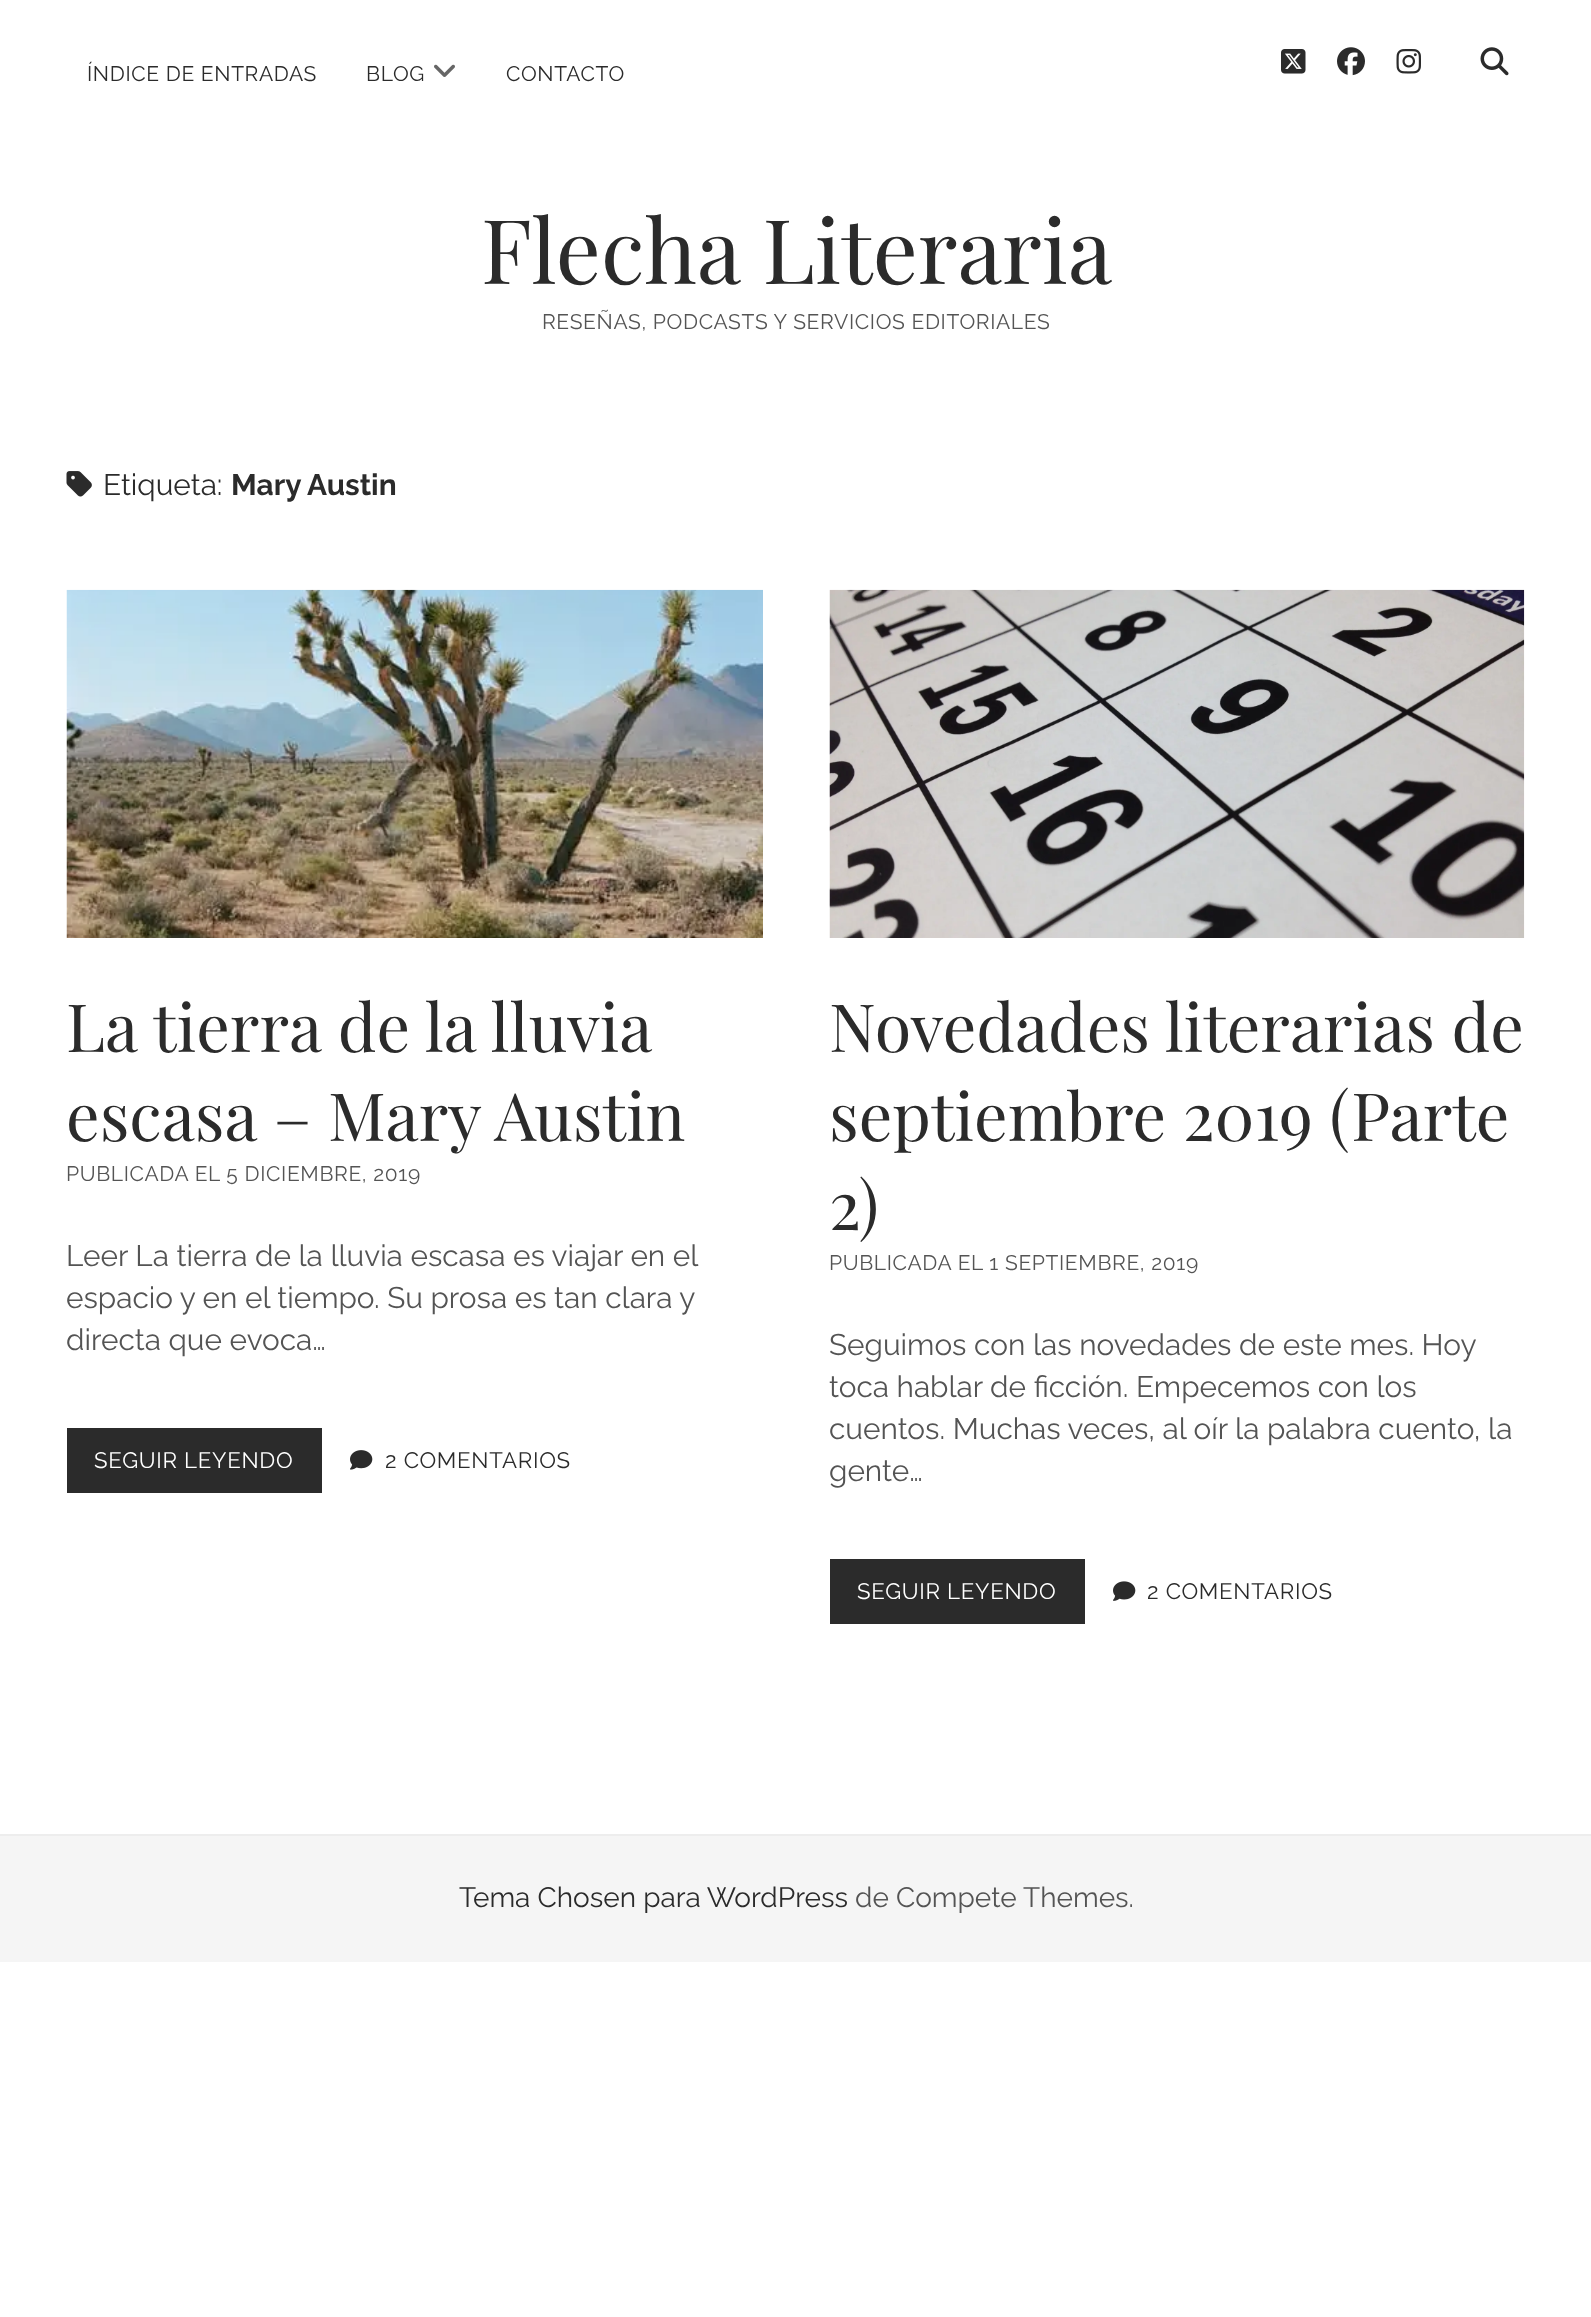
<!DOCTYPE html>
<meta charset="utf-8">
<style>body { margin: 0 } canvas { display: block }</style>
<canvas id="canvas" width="1591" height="2317"></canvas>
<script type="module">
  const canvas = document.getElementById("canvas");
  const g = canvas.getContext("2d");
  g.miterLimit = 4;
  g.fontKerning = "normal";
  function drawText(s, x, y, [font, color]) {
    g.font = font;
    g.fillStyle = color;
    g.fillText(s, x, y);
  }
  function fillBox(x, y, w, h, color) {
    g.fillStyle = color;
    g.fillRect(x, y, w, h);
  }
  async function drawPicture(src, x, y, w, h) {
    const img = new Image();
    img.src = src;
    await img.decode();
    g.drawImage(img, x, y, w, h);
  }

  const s1 = ["21px Raleway", "#2B2B2B"];
  const s2 = ["89.25px Playfair Display", "#2B2B2B"];
  const s3 = ["21px Raleway", "#545454"];
  const s4 = ["29.75px Raleway", "#2B2B2B"];
  const s5 = ["bold 29.75px Raleway", "#2B2B2B"];
  const s6 = ["66.5px Playfair Display", "#2B2B2B"];
  const s7 = ["29.75px Raleway", "#545454"];
  const s8 = ["22.25px Raleway", "#FFFFFF"];
  const s9 = ["22.25px Raleway", "#2B2B2B"];
  const s10 = ["28px Raleway", "#2B2B2B"];
  const s11 = ["28px Raleway", "#545454"];

  fillBox(0, 0, 1591, 2317, "#FFFFFF");
  g.letterSpacing = "0.65px";
  drawText("ÍNDICE DE ENTRADAS", 87, 81, s1);
  drawText("BLOG", 366, 81, s1);
  await drawPicture("pic1.png", 434, 64, 21, 13);
  drawText("CONTACTO", 506, 81, s1);
  await drawPicture("pic2.png", 1281, 49, 25, 25);
  await drawPicture("pic3.png", 1337, 47, 28, 29);
  await drawPicture("pic4.png", 1396, 49, 25, 25);
  await drawPicture("pic5.png", 1480, 47, 29, 29);
  g.letterSpacing = "0px";
  drawText("Flecha Literaria", 481, 284, s2);
  g.letterSpacing = "0.65px";
  drawText("RESEÑAS, PODCASTS Y SERVICIOS EDITORIALES", 542, 329, s3);
  await drawPicture("pic6.png", 66, 471, 26, 26);
  g.letterSpacing = "0px";
  drawText("Etiqueta:", 103, 495, s4);
  drawText("Mary Austin", 231, 495, s5);
  await drawPicture("pic7.png", 66, 589, 697, 349);
  drawText("La tierra de la lluvia", 66, 1052, s6);
  drawText("escasa – Mary Austin", 66, 1141, s6);
  g.letterSpacing = "0.65px";
  drawText("PUBLICADA EL 5 DICIEMBRE, 2019", 66, 1181, s3);
  g.letterSpacing = "0px";
  drawText("Leer La tierra de la lluvia escasa es viajar en el", 66, 1266, s7);
  drawText("espacio y en el tiempo. Su prosa es tan clara y", 66, 1308, s7);
  drawText("directa que evoca…", 66, 1350, s7);
  fillBox(67, 1428, 255, 65, "#2B2B2B");
  g.letterSpacing = "0.7px";
  drawText("SEGUIR LEYENDO", 94, 1468, s8);
  await drawPicture("pic8.png", 350, 1450, 23, 20);
  drawText("2 COMENTARIOS", 385, 1468, s9);
  await drawPicture("pic9.png", 829, 589, 696, 349);
  g.letterSpacing = "0px";
  drawText("Novedades literarias de", 829, 1052, s6);
  drawText("septiembre 2019 (Parte", 829, 1141, s6);
  drawText("2)", 829, 1230, s6);
  g.letterSpacing = "0.65px";
  drawText("PUBLICADA EL 1 SEPTIEMBRE, 2019", 829, 1270, s3);
  g.letterSpacing = "0px";
  drawText("Seguimos con las novedades de este mes. Hoy", 829, 1355, s7);
  drawText("toca hablar de ficción. Empecemos con los", 829, 1397, s7);
  drawText("cuentos. Muchas veces, al oír la palabra cuento, la", 829, 1439, s7);
  drawText("gente…", 829, 1481, s7);
  fillBox(830, 1559, 255, 65, "#2B2B2B");
  g.letterSpacing = "0.7px";
  drawText("SEGUIR LEYENDO", 857, 1599, s8);
  await drawPicture("pic10.png", 1113, 1581, 23, 20);
  drawText("2 COMENTARIOS", 1147, 1599, s9);
  fillBox(0, 1836, 1591, 126, "#F5F5F5");
  fillBox(0, 1834, 1591, 2, "#EDEDED");
  g.letterSpacing = "0px";
  drawText("Tema Chosen para WordPress", 459, 1907, s10);
  drawText("de Compete Themes.", 855, 1907, s11);
</script>
